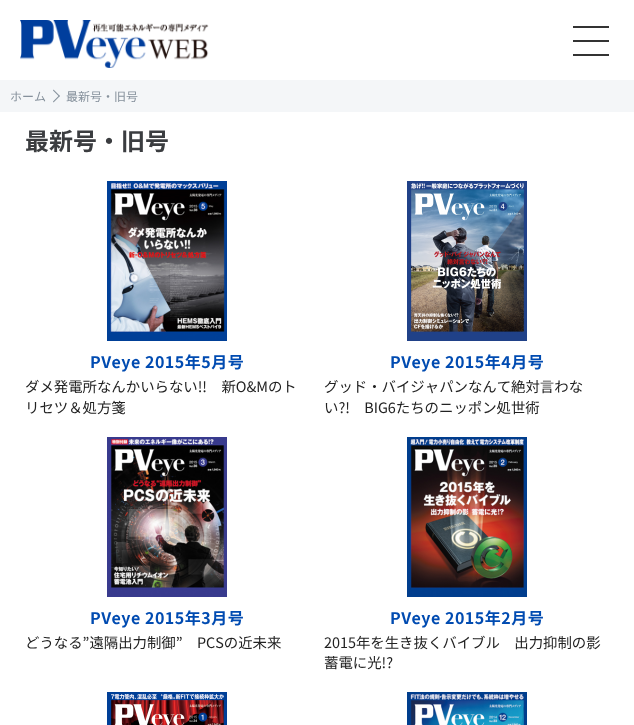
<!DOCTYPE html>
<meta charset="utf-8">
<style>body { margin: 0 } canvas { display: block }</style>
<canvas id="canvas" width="634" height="725"></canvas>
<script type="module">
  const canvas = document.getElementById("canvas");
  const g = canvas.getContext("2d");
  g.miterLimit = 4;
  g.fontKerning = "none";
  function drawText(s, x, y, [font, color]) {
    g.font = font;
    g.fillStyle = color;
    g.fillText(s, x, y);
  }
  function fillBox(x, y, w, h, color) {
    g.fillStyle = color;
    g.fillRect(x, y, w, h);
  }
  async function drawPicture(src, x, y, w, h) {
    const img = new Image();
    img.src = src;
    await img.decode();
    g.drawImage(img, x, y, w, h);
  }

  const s1 = ["12px Noto Sans JP", "#86919C"];
  const s2 = ["bold 24px Noto Sans JP", "#3B3D40"];
  const s3 = ["bold 16px Noto Sans JP", "#004BB1"];
  const s4 = ["14.4px Noto Sans JP", "#222222"];

  fillBox(0, 0, 634, 725, "#FFFFFF");
  await drawPicture("pic1.png", 20, 20, 189, 48);
  fillBox(573, 26, 36, 2, "#333333");
  fillBox(573, 40, 36, 2, "#333333");
  fillBox(573, 54, 36, 2, "#333333");
  fillBox(0, 80, 634, 32, "#F4F6F8");
  drawText("ホーム", 10, 101, s1);
  g.beginPath();
  g.moveTo(53.5, 89.5);
  g.lineTo(60, 96);
  g.lineTo(59, 96.5);
  g.lineTo(53, 90.5);
  g.closePath();
  g.fill();
  g.beginPath();
  g.moveTo(59, 95.5);
  g.lineTo(60, 96);
  g.lineTo(53.5, 102.5);
  g.lineTo(53, 101.5);
  g.closePath();
  g.fill();
  drawText("最新号・旧号", 66, 101, s1);
  drawText("最新号・旧号", 25, 150, s2);
  await drawPicture("pic2.png", 107, 181, 120, 160);
  g.letterSpacing = "0.5px";
  drawText("PVeye 2015年5月号", 90, 368, s3);
  g.letterSpacing = "0px";
  drawText("ダメ発電所なんかいらない!!　新O&Mのト", 25, 392, s4);
  drawText("リセツ＆処方箋", 25, 413, s4);
  await drawPicture("pic3.png", 407, 181, 120, 160);
  g.letterSpacing = "0.5px";
  drawText("PVeye 2015年4月号", 390, 368, s3);
  g.letterSpacing = "0px";
  drawText("グッド・バイジャパンなんて絶対言わな", 324, 392, s4);
  drawText("い?!　BIG6たちのニッポン処世術", 324, 413, s4);
  await drawPicture("pic4.png", 107, 437, 120, 160);
  g.letterSpacing = "0.5px";
  drawText("PVeye 2015年3月号", 90, 624, s3);
  g.letterSpacing = "0px";
  drawText("どうなる”遠隔出力制御”　PCSの近未来", 25, 648, s4);
  await drawPicture("pic5.png", 407, 437, 120, 160);
  g.letterSpacing = "0.5px";
  drawText("PVeye 2015年2月号", 390, 624, s3);
  g.letterSpacing = "0px";
  drawText("2015年を生き抜くバイブル　出力抑制の影", 324, 648, s4);
  drawText("蓄電に光!?", 324, 668, s4);
  await drawPicture("pic6.png", 107, 692, 120, 33);
  await drawPicture("pic7.png", 407, 692, 120, 33);
</script>
